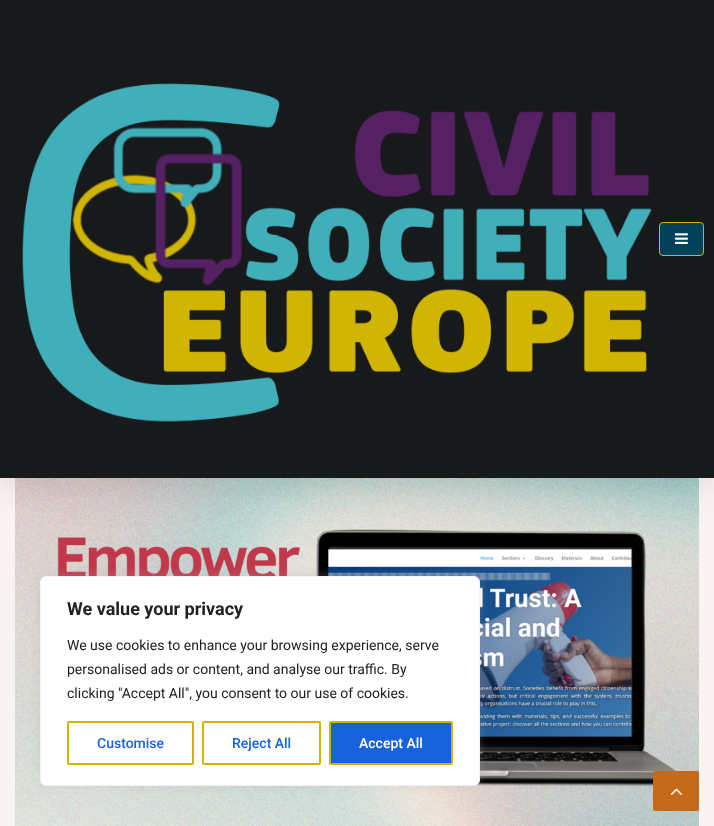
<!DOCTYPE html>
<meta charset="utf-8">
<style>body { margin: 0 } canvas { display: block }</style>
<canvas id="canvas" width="714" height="826"></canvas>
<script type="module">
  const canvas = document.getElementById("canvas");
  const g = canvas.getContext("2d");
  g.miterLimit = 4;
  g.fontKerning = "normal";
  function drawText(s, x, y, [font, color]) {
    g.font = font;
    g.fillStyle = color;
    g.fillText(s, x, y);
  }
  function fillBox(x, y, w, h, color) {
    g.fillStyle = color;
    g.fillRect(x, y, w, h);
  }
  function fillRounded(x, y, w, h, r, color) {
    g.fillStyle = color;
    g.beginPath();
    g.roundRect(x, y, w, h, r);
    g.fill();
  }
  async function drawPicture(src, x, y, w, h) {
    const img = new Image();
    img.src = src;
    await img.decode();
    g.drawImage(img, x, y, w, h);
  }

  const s1 = ["bold 18px Roboto", "#212121"];
  const s2 = ["14px Roboto", "#212121"];
  const s3 = ["500 14px Roboto", "#1863DC"];
  const s4 = ["500 14px Roboto", "#FFFFFF"];

  fillBox(0, 0, 714, 826, "#F9F3F2");
  await drawPicture("pic3.png", 15, 478, 684, 348);
  g.fillStyle = "rgba(0, 0, 0, 0.14)";
  g.filter = "blur(22px)";
  g.beginPath();
  g.rect(0, 4, 714, 478);
  g.fill();
  g.filter = "none";
  fillBox(0, 0, 714, 478, "#18191B");
  await drawPicture("pic1.png", 22, 83, 630, 339);
  g.fillStyle = "#01415C";
  g.beginPath();
  g.roundRect(659.5, 222.5, 44, 33, 3.5);
  g.fill();
  g.strokeStyle = "#D0B503";
  g.stroke();
  await drawPicture("pic2.png", 675, 233, 13, 11);
  fillRounded(653, 771, 46, 40, 2, "#C5691A");
  await drawPicture("pic4.png", 670, 788, 12, 7);
  g.fillStyle = "rgba(172, 171, 171, 0.3)";
  g.filter = "blur(5px)";
  g.beginPath();
  g.roundRect(40, 575, 440, 210, 6);
  g.fill();
  g.filter = "none";
  g.fillStyle = "#FFFFFF";
  g.beginPath();
  g.roundRect(40.5, 576.5, 439, 209, 5.5);
  g.fill();
  g.strokeStyle = "#F4F4F4";
  g.stroke();
  drawText("We value your privacy", 67, 615, s1);
  drawText("We use cookies to enhance your browsing experience, serve", 67, 650, s2);
  drawText("personalised ads or content, and analyse our traffic. By", 67, 674, s2);
  drawText("clicking \"Accept All\", you consent to our use of cookies.", 67, 698, s2);
  g.beginPath();
  g.roundRect(68, 722, 125, 42, 1);
  g.strokeStyle = "#D0B503";
  g.lineWidth = 2;
  g.stroke();
  drawText("Customise", 97, 748, s3);
  g.beginPath();
  g.roundRect(203, 722, 117, 42, 1);
  g.stroke();
  drawText("Reject All", 232, 748, s3);
  g.beginPath();
  g.roundRect(330, 722, 122, 42, 1);
  g.fill();
  g.stroke();
  drawText("Accept All", 359, 748, s4);
</script>
